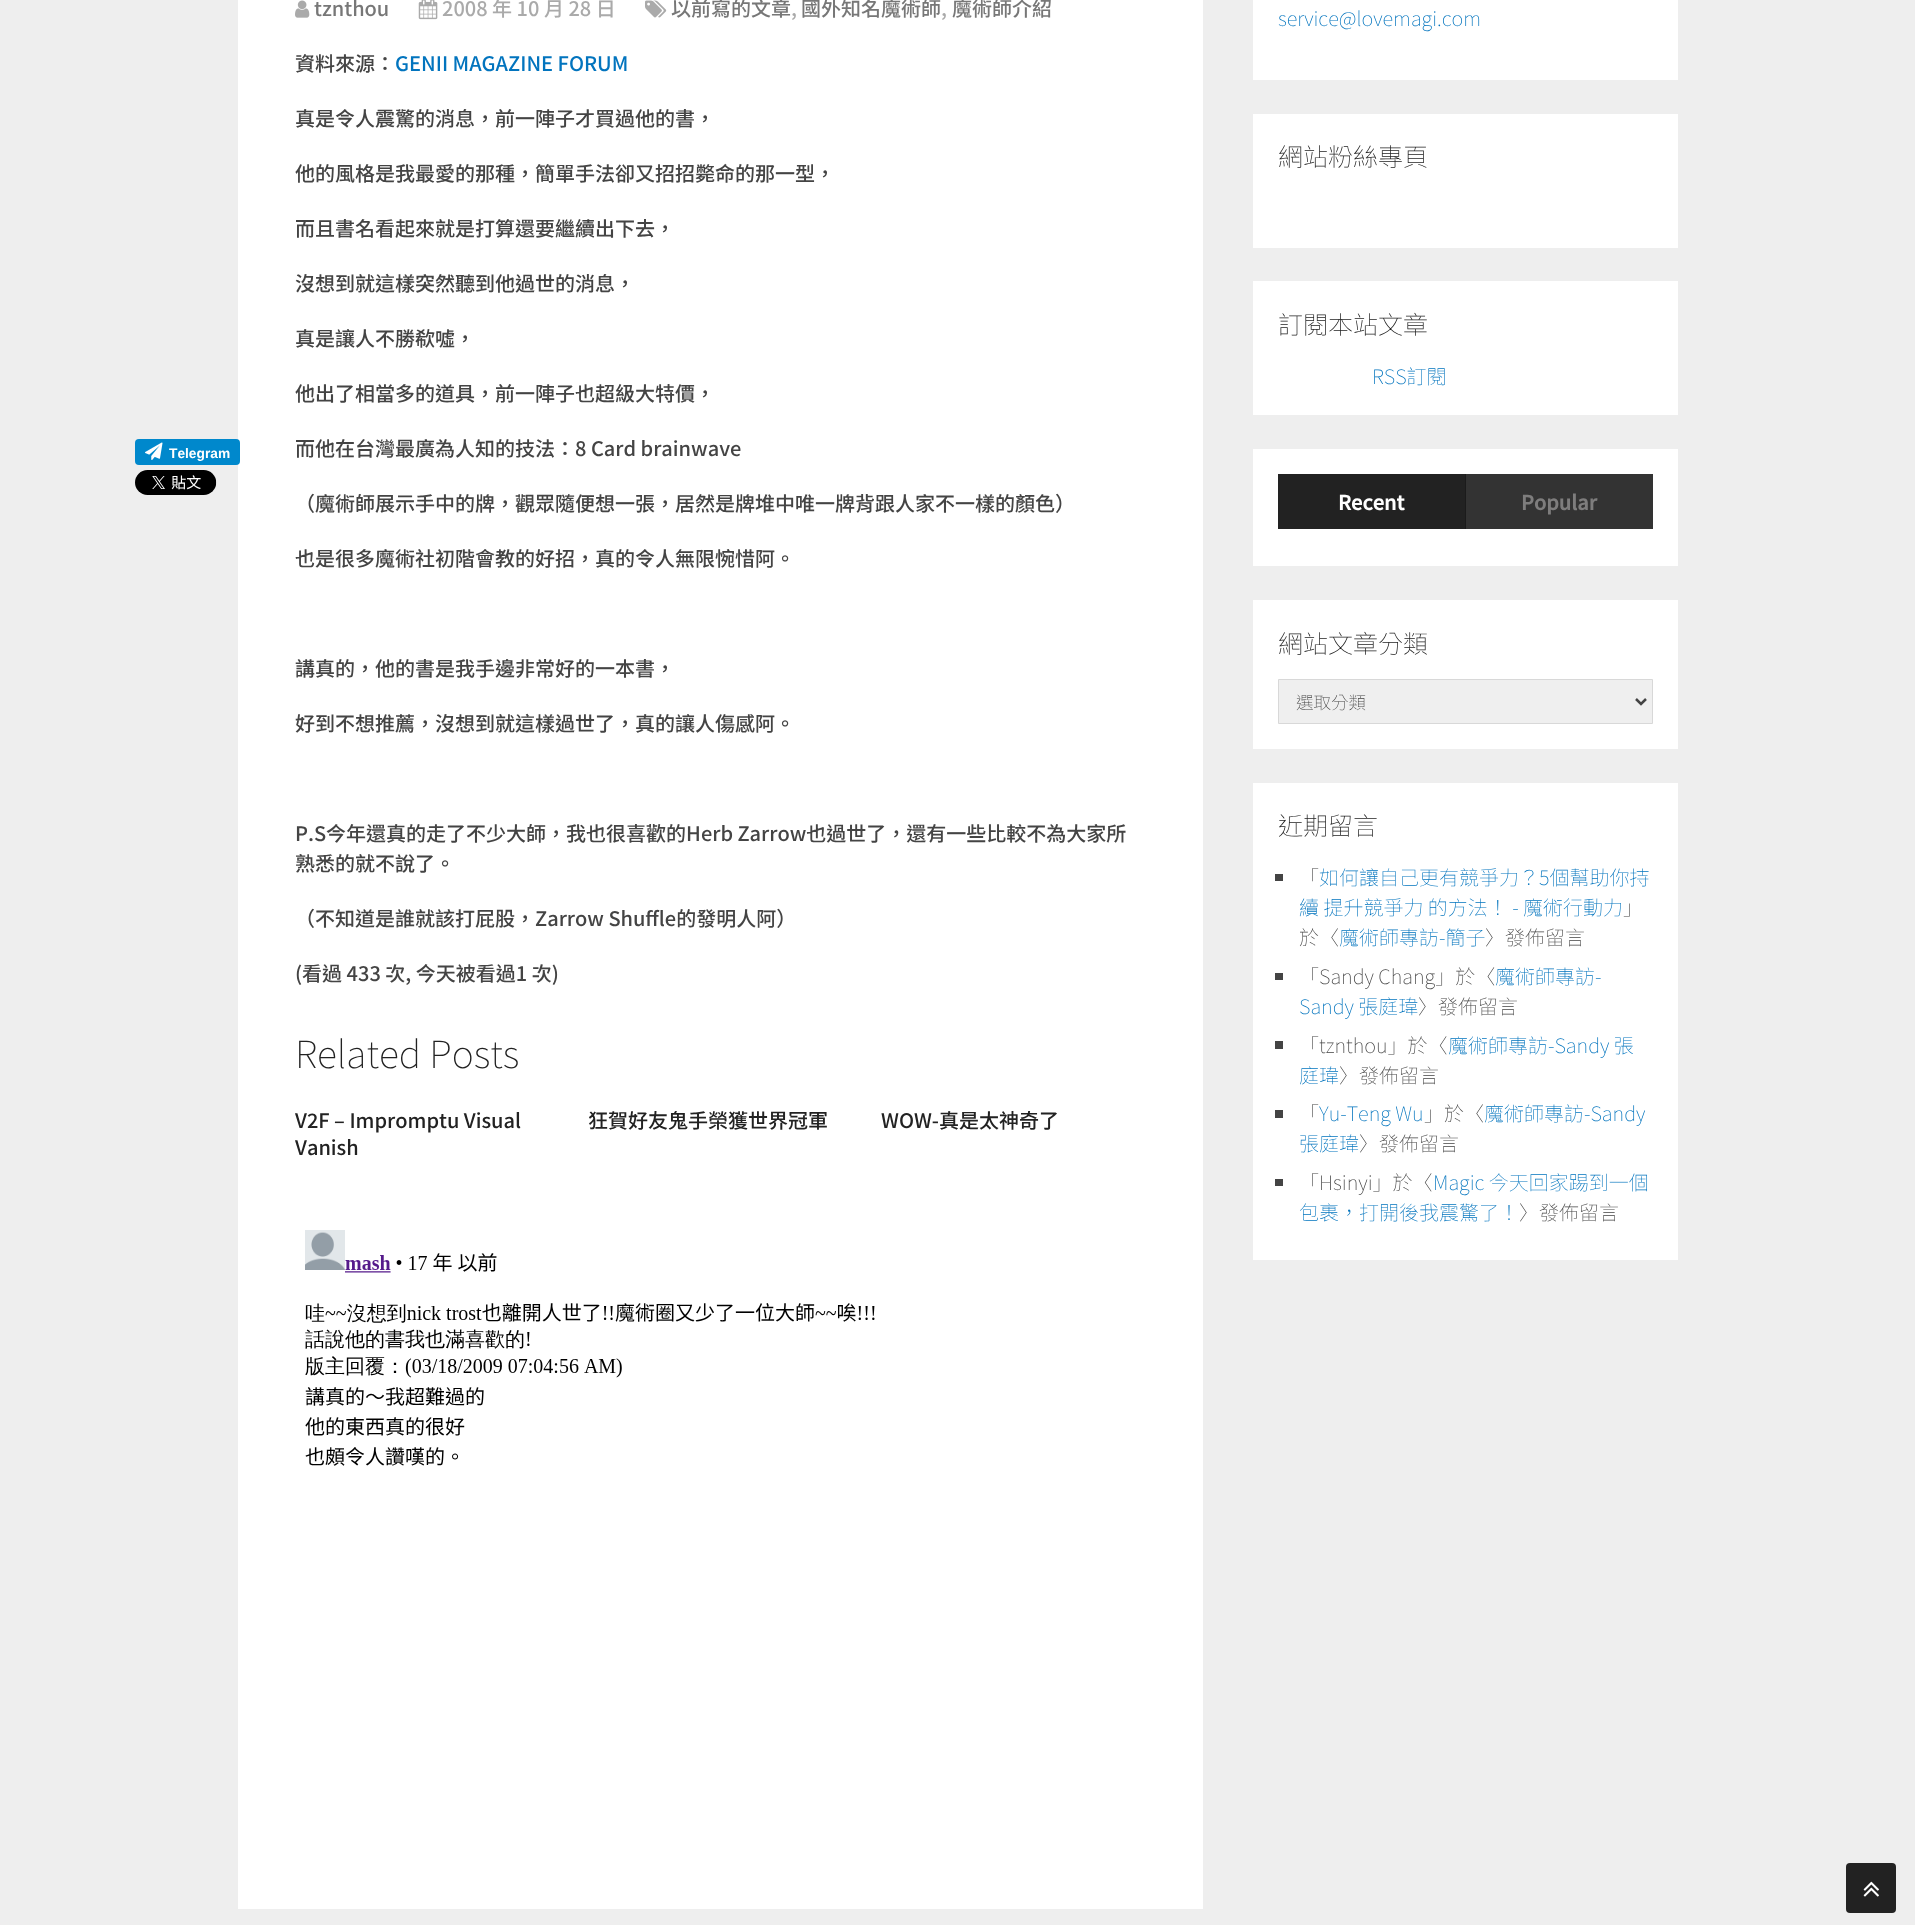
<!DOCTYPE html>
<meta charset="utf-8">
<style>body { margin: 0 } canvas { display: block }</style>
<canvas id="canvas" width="1915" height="1925"></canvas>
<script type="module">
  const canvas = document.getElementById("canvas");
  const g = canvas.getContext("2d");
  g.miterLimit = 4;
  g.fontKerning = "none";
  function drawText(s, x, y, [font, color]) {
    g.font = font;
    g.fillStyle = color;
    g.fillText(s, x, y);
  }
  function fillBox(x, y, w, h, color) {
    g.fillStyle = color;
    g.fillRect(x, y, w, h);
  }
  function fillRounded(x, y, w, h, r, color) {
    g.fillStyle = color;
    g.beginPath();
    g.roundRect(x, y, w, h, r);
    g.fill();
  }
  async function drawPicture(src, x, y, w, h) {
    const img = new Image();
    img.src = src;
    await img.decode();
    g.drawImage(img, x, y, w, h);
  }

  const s1 = ["500 20px Noto Sans TC", "#777777"];
  const s2 = ["500 20px Noto Sans TC", "#AAAAAA"];
  const s3 = ["bold 13.75px Liberation Sans", "#FFFFFF"];
  const s4 = ["500 20px Noto Sans TC", "#444444"];
  const s5 = ["500 20px Noto Sans TC", "#0274BE"];
  const s6 = ["100 37.5px Noto Sans TC", "#222222"];
  const s7 = ["500 20px Noto Sans TC", "#222222"];
  const s8 = ["100 20px Noto Sans TC", "#0274BE"];
  const s9 = ["100 25px Noto Sans TC", "#222222"];
  const s10 = ["bold 20px Noto Sans TC", "#FFFFFF"];
  const s11 = ["bold 20px Noto Sans TC", "#7E7D7D"];
  const s12 = ["100 17.5px Noto Sans TC", "#444444"];
  const s13 = ["100 20px Noto Sans TC", "#444444"];

  fillBox(0, 0, 1915, 1925, "#EEEEEE");
  fillBox(238, 0, 965, 1909, "#FFFFFF");
  await drawPicture("pic1.png", 295, 0, 15, 18);
  drawText("tznthou", 314, 16, s1);
  await drawPicture("pic2.png", 418, 0, 20, 20);
  drawText("2008 年 10 月 28 日", 442, 16, s2);
  await drawPicture("pic3.png", 645, 0, 22, 18);
  drawText("以前寫的文章", 671, 16, s1);
  drawText(",", 791, 16, s2);
  drawText("國外知名魔術師", 801, 16, s1);
  drawText(",", 941, 16, s2);
  drawText("魔術師介紹", 952, 16, s1);
  fillRounded(135, 439, 105, 26, 4, "#0088CC");
  await drawPicture("pic4.png", 145, 442, 18, 18);
  drawText("Telegram", 169, 458, s3);
  await drawPicture("pic5.png", 135, 470, 82, 25);
  drawText("資料來源：", 295, 71, s4);
  drawText("GENII MAGAZINE FORUM", 395, 71, s5);
  drawText("真是令人震驚的消息，前一陣子才買過他的書，", 295, 126, s4);
  drawText("他的風格是我最愛的那種，簡單手法卻又招招斃命的那一型，", 295, 181, s4);
  drawText("而且書名看起來就是打算還要繼續出下去，", 295, 236, s4);
  drawText("沒想到就這樣突然聽到他過世的消息，", 295, 291, s4);
  drawText("真是讓人不勝欷噓，", 295, 346, s4);
  drawText("他出了相當多的道具，前一陣子也超級大特價，", 295, 401, s4);
  drawText("而他在台灣最廣為人知的技法：8 Card brainwave", 295, 456, s4);
  drawText("（魔術師展示手中的牌，觀眾隨便想一張，居然是牌堆中唯一牌背跟人家不一樣的顏色）", 295, 511, s4);
  drawText("也是很多魔術社初階會教的好招，真的令人無限惋惜阿。", 295, 566, s4);
  drawText("講真的，他的書是我手邊非常好的一本書，", 295, 676, s4);
  drawText("好到不想推薦，沒想到就這樣過世了，真的讓人傷感阿。", 295, 731, s4);
  drawText("P.S今年還真的走了不少大師，我也很喜歡的Herb Zarrow也過世了，還有一些比較不為大家所", 295, 841, s4);
  drawText("熟悉的就不說了。", 295, 871, s4);
  drawText("（不知道是誰就該打屁股，Zarrow Shuffle的發明人阿）", 295, 926, s4);
  drawText("(看過 433 次, 今天被看過1 次)", 295, 981, s4);
  drawText("Related Posts", 295, 1068, s6);
  drawText("V2F – Impromptu Visual", 295, 1128, s7);
  drawText("Vanish", 295, 1155, s7);
  drawText("狂賀好友鬼手榮獲世界冠軍", 588, 1128, s7);
  drawText("WOW-真是太神奇了", 881, 1128, s7);
  await drawPicture("pic6.png", 305, 1230, 570, 236);
  fillBox(1253, 0, 425, 80, "#FFFFFF");
  drawText("service@lovemagi.com", 1278, 26, s8);
  fillBox(1253, 114, 425, 134, "#FFFFFF");
  drawText("網站粉絲專頁", 1278, 166, s9);
  fillBox(1253, 281, 425, 134, "#FFFFFF");
  drawText("訂閱本站文章", 1278, 334, s9);
  drawText("RSS訂閱", 1372, 384, s8);
  fillBox(1253, 449, 425, 117, "#FFFFFF");
  fillBox(1278, 474, 187, 55, "#222222");
  drawText("Recent", 1338, 510, s10);
  fillBox(1466, 474, 187, 55, "#333333");
  fillBox(1465, 474, 1, 55, "#1B1B1B");
  drawText("Popular", 1521, 510, s11);
  fillBox(1253, 600, 425, 149, "#FFFFFF");
  drawText("網站文章分類", 1278, 653, s9);
  g.fillStyle = "#EFEFEF";
  g.beginPath();
  g.rect(1278.5, 679.5, 374, 44);
  g.fill();
  g.strokeStyle = "#D8D8D8";
  g.stroke();
  g.beginPath();
  g.moveTo(1636, 699);
  g.lineTo(1641, 704);
  g.lineTo(1646, 699);
  g.strokeStyle = "#444444";
  g.lineWidth = 2.5;
  g.stroke();
  drawText("選取分類", 1296, 709, s12);
  fillBox(1253, 783, 425, 477, "#FFFFFF");
  drawText("近期留言", 1278, 835, s9);
  fillBox(1275, 874, 8, 7, "#444444");
  drawText("「", 1299, 885, s13);
  drawText("如何讓自己更有競爭力？5個幫助你持", 1319, 885, s8);
  drawText("續 提升競爭力 的方法！ - 魔術行動力", 1299, 915, s8);
  drawText("」", 1623, 915, s13);
  drawText("於〈", 1299, 945, s13);
  drawText("魔術師專訪-簡子", 1339, 945, s8);
  drawText("〉發佈留言", 1485, 945, s13);
  fillBox(1275, 973, 8, 7, "#444444");
  drawText("「Sandy Chang」於〈", 1299, 984, s13);
  drawText("魔術師專訪-", 1495, 984, s8);
  drawText("Sandy 張庭瑋", 1299, 1014, s8);
  drawText("〉發佈留言", 1418, 1014, s13);
  fillBox(1275, 1041, 8, 8, "#444444");
  drawText("「tznthou」於〈", 1299, 1053, s13);
  drawText("魔術師專訪-Sandy 張", 1448, 1053, s8);
  drawText("庭瑋", 1299, 1083, s8);
  drawText("〉發佈留言", 1339, 1083, s13);
  fillBox(1275, 1110, 8, 8, "#444444");
  drawText("「", 1299, 1121, s13);
  drawText("Yu-Teng Wu", 1319, 1121, s8);
  drawText("」於〈", 1424, 1121, s13);
  drawText("魔術師專訪-Sandy", 1484, 1121, s8);
  drawText("張庭瑋", 1299, 1151, s8);
  drawText("〉發佈留言", 1359, 1151, s13);
  fillBox(1275, 1179, 8, 7, "#444444");
  drawText("「Hsinyi」於〈", 1299, 1190, s13);
  drawText("Magic 今天回家踢到一個", 1433, 1190, s8);
  drawText("包裹，打開後我震驚了！", 1299, 1220, s8);
  drawText("〉發佈留言", 1519, 1220, s13);
  fillRounded(1846, 1863, 50, 50, 4, "#222222");
  await drawPicture("pic7.png", 1863, 1881, 16, 16);
</script>
